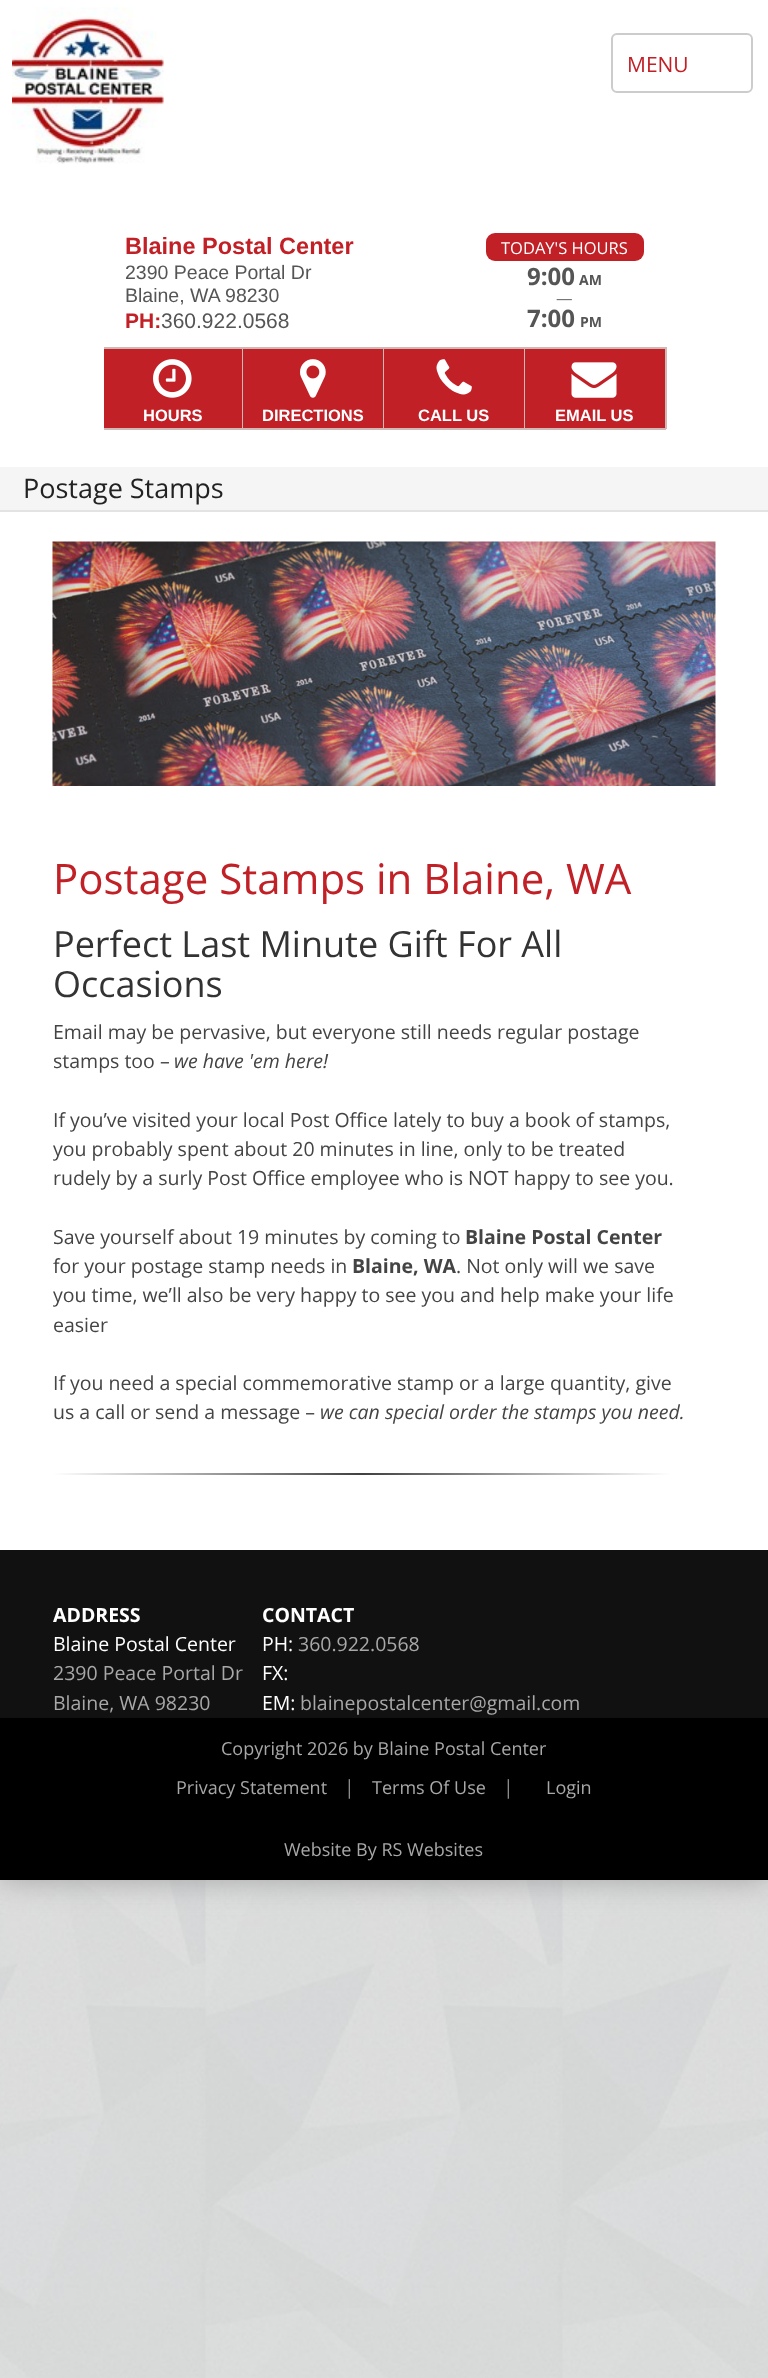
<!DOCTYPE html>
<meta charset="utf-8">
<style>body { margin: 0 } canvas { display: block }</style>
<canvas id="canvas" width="768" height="2378"></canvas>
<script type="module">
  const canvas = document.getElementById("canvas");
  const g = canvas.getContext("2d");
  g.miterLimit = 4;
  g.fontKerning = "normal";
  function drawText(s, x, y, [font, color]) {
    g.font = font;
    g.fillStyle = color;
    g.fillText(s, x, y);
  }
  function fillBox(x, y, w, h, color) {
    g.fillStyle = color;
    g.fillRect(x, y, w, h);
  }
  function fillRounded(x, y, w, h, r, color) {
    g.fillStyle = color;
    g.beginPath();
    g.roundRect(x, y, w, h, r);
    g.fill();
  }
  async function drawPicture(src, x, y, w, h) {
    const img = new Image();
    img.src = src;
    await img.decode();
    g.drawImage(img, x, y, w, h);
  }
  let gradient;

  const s1 = ["21px Open Sans", "#C12026"];
  const s2 = ["bold 23.5px Liberation Sans", "#C12026"];
  const s3 = ["19.5px Liberation Sans", "#555555"];
  const s4 = ["bold 21px Liberation Sans", "#C12026"];
  const s5 = ["21px Liberation Sans", "#555555"];
  const s6 = ["16.5px Open Sans", "#FFFFFF"];
  const s7 = ["bold 24px Open Sans", "#555555"];
  const s8 = ["bold 14px Open Sans", "#555555"];
  const s9 = ["16.5px Open Sans", "#767676"];
  const s10 = ["bold 16.5px Liberation Sans", "#FFFFFF"];
  const s11 = ["27px Open Sans", "#222222"];
  const s12 = ["42px Open Sans", "#C12026"];
  const s13 = ["36px Open Sans", "#333333"];
  const s14 = ["19.5px Open Sans", "#444444"];
  const s15 = ["italic 19.5px Open Sans", "#444444"];
  const s16 = ["bold 19.5px Open Sans", "#444444"];
  const s17 = ["bold 19.5px Open Sans", "#FFFFFF"];
  const s18 = ["19.5px Open Sans", "#FFFFFF"];
  const s19 = ["19.5px Open Sans", "#A8A8A8"];
  const s20 = ["18px Open Sans", "#A8A8A8"];
  const s21 = ["19.5px Open Sans", "#8A8A8A"];

  fillBox(0, 0, 768, 2378, "#FFFFFF");
  await drawPicture("pic1.png", 0, 1880, 768, 498);
  g.fillStyle = "#A3A3A3";
  g.filter = "blur(15px)";
  g.beginPath();
  g.rect(0, 0, 768, 1880);
  g.fill();
  g.filter = "none";
  fillBox(0, 0, 768, 1550, "#FFFFFF");
  await drawPicture("pic2.png", 12, 7, 152, 157);
  g.beginPath();
  g.roundRect(612, 34, 140, 58, 5);
  g.strokeStyle = "#CCCCCC";
  g.lineWidth = 2;
  g.stroke();
  drawText("MENU", 627, 72, s1);
  drawText("Blaine Postal Center", 125, 254, s2);
  drawText("2390 Peace Portal Dr", 125, 279, s3);
  drawText("Blaine, WA 98230", 125, 302, s3);
  drawText("PH:", 125, 328, s4);
  drawText("360.922.0568", 161, 328, s5);
  fillRounded(486, 233, 158, 28, 9, "#C12026");
  drawText("TODAY'S HOURS", 501, 254, s6);
  drawText("9:00", 527, 285, s7);
  drawText("AM", 579, 285, s8);
  drawText("—", 556, 304, s9);
  drawText("7:00", 527, 327, s7);
  drawText("PM", 580, 327, s8);
  fillBox(104, 349, 138, 79, "#C12026");
  fillBox(104, 347, 562, 2, "#D0B8B4");
  fillBox(242, 347, 1, 82, "#D0B8B4");
  fillBox(104, 428, 139, 2, "#D0B8B4");
  await drawPicture("pic3.png", 153, 359, 39, 39);
  drawText("HOURS", 143, 421, s10);
  fillBox(243, 349, 140, 79, "#C12026");
  fillBox(383, 347, 1, 82, "#D0B8B4");
  fillBox(243, 428, 141, 2, "#D0B8B4");
  await drawPicture("pic4.png", 300, 359, 26, 39);
  drawText("DIRECTIONS", 262, 421, s10);
  fillBox(384, 349, 140, 79, "#C12026");
  fillBox(524, 347, 1, 82, "#D0B8B4");
  fillBox(384, 428, 141, 2, "#D0B8B4");
  await drawPicture("pic5.png", 436, 359, 36, 36);
  drawText("CALL US", 418, 421, s10);
  fillBox(525, 349, 140, 79, "#C12026");
  fillBox(665, 347, 2, 82, "#D0B8B4");
  fillBox(525, 428, 141, 2, "#D0B8B4");
  await drawPicture("pic6.png", 571, 362, 46, 36);
  drawText("EMAIL US", 555, 421, s10);
  fillBox(0, 467, 768, 43, "#F5F5F5");
  fillBox(0, 510, 768, 2, "#E3E3E3");
  drawText("Postage Stamps", 23, 498, s11);
  await drawPicture("pic7.png", 52, 541, 664, 245);
  drawText("Postage Stamps in Blaine, WA", 53, 894, s12);
  drawText("Perfect Last Minute Gift For All", 53, 957, s13);
  drawText("Occasions", 53, 997, s13);
  drawText("Email may be pervasive, but everyone still needs regular postage", 53, 1039, s14);
  drawText("stamps too –", 53, 1068, s14);
  drawText("we have 'em here!", 174, 1068, s15);
  drawText("If you’ve visited your local Post Office lately to buy a book of stamps,", 53, 1127, s14);
  drawText("you probably spent about 20 minutes in line, only to be treated", 53, 1156, s14);
  drawText("rudely by a surly Post Office employee who is NOT happy to see you.", 53, 1185, s14);
  drawText("Save yourself about 19 minutes by coming to", 53, 1244, s14);
  drawText("Blaine Postal Center", 465, 1244, s16);
  drawText("for your postage stamp needs in", 53, 1273, s14);
  drawText("Blaine, WA", 352, 1273, s16);
  drawText(". Not only will we save", 456, 1273, s14);
  drawText("you time, we’ll also be very happy to see you and help make your life", 53, 1302, s14);
  drawText("easier", 53, 1332, s14);
  drawText("If you need a special commemorative stamp or a large quantity, give", 53, 1390, s14);
  drawText("us a call or send a message –", 53, 1419, s14);
  drawText("we can special order the stamps you need.", 320, 1419, s15);
  gradient = g.createLinearGradient(53, 1474, 671, 1474);
  gradient.addColorStop(0, "#FFFFFF");
  gradient.addColorStop(0.5, "#404040");
  gradient.addColorStop(1, "#FFFFFF");
  g.fillStyle = gradient;
  g.fillRect(53, 1473, 618, 2);
  fillBox(0, 1550, 768, 168, "#111111");
  drawText("ADDRESS", 53, 1622, s17);
  drawText("Blaine Postal Center", 53, 1651, s18);
  drawText("2390 Peace Portal Dr", 53, 1680, s19);
  drawText("Blaine, WA 98230", 53, 1710, s19);
  drawText("CONTACT", 262, 1622, s17);
  drawText("PH:", 262, 1651, s18);
  drawText("360.922.0568", 298, 1651, s19);
  drawText("FX:", 262, 1680, s18);
  drawText("EM:", 262, 1710, s18);
  drawText("blainepostalcenter@gmail.com", 300, 1710, s19);
  fillBox(0, 1718, 768, 162, "#000000");
  drawText("Copyright 2026 by Blaine Postal Center", 221, 1755, s20);
  drawText("Privacy Statement", 176, 1794, s20);
  drawText("|", 344, 1794, s21);
  drawText("Terms Of Use", 372, 1794, s20);
  drawText("|", 503, 1794, s21);
  drawText("Login", 546, 1794, s20);
  drawText("Website By RS Websites", 284, 1856, s20);
</script>
